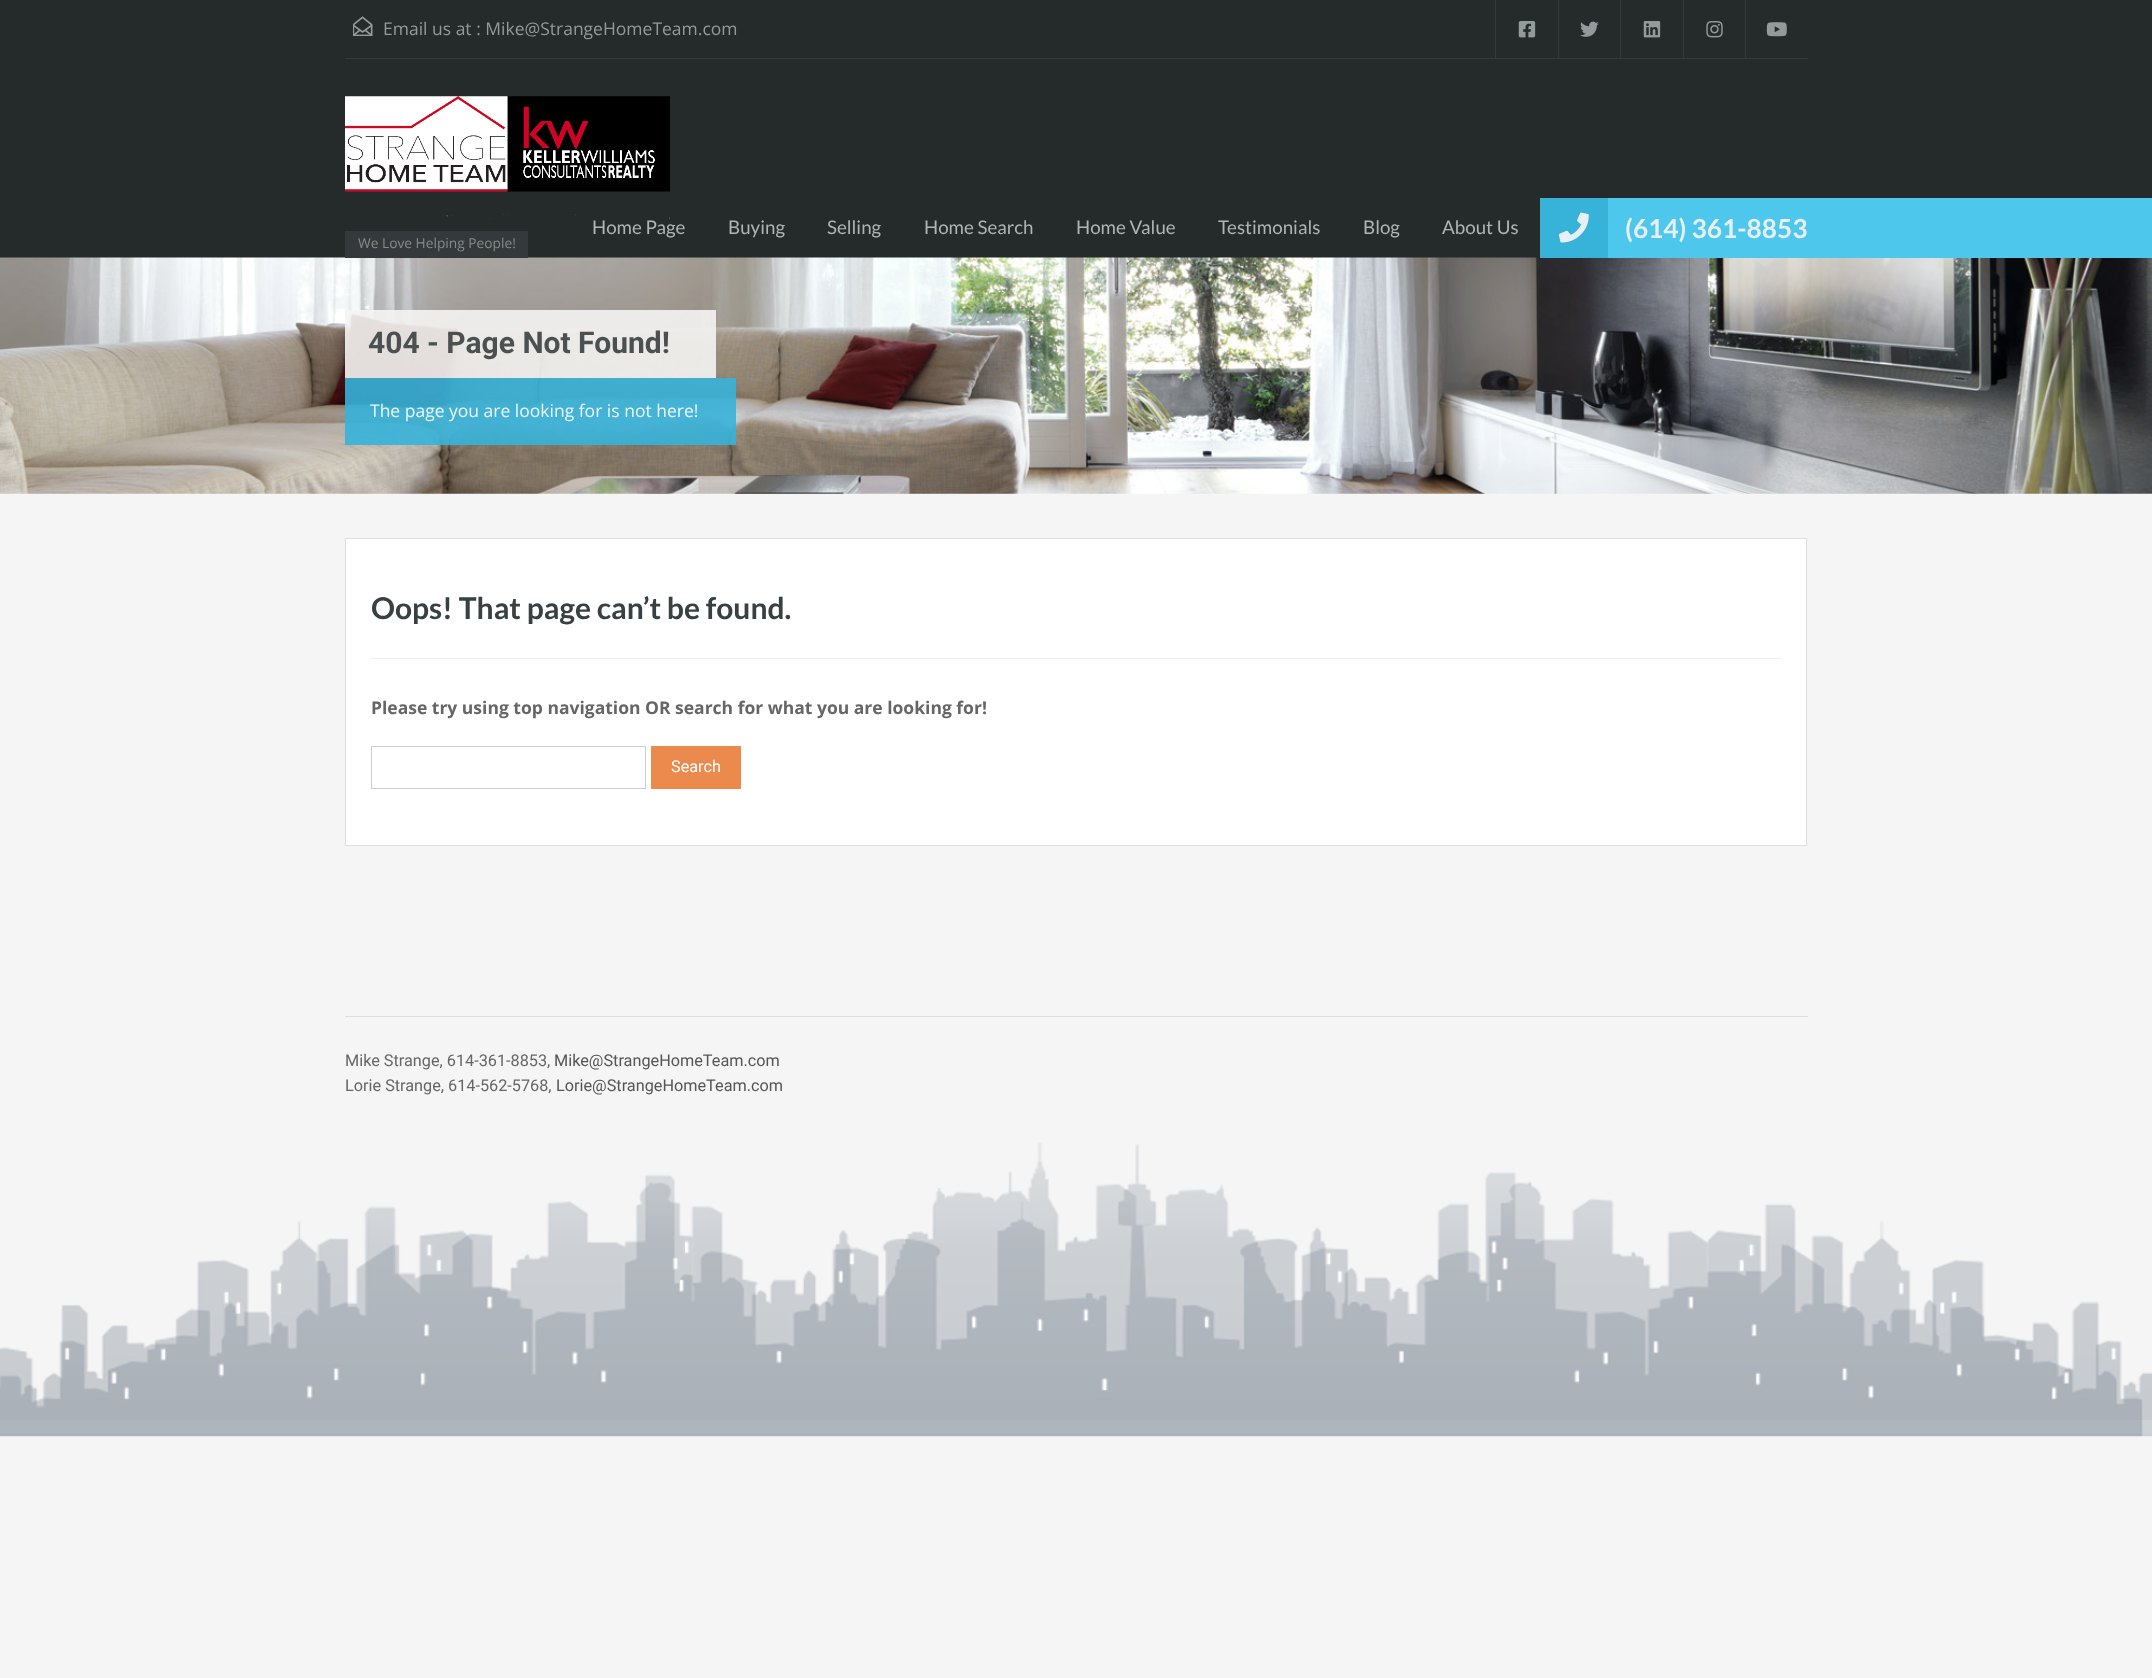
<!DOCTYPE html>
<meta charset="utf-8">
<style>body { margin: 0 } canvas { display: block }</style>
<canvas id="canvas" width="2152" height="1678"></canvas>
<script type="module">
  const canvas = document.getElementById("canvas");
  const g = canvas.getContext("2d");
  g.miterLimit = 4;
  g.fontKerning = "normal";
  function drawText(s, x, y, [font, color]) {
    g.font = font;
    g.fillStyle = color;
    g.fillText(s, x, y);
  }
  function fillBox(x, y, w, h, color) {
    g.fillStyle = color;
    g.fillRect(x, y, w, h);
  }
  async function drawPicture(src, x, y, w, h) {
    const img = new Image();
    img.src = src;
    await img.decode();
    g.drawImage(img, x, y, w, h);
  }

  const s1 = ["17.5px Open Sans", "#929A9B"];
  const s2 = ["18.75px Lato", "#AFB4B5"];
  const s3 = ["bold 26.25px Lato", "#E7EFF7"];
  const s4 = ["13.75px Open Sans", "#888888"];
  const s5 = ["bold 30px Roboto", "#4B5151"];
  const s6 = ["17.5px Open Sans", "#ECF7FB"];
  const s7 = ["bold 30px Lato", "#394041"];
  const s8 = ["bold 17.5px Open Sans", "#666666"];
  const s9 = ["16.25px Roboto", "#FFFFFF"];
  const s10 = ["16.25px Roboto", "#666666"];
  const s11 = ["16.25px Roboto", "#555555"];

  fillBox(0, 0, 2152, 1678, "#F5F5F5");
  fillBox(0, 0, 2152, 258, "#252A2B");
  fillBox(345, 58, 1463, 1, "#343A3B");
  await drawPicture("pic1.png", 353, 16, 20, 20);
  drawText("Email us at : Mike@StrangeHomeTeam.com", 383, 35, s1);
  fillBox(1495, 0, 1, 58, "#343A3B");
  await drawPicture("pic2.png", 1518, 21, 18, 17);
  fillBox(1558, 0, 1, 58, "#343A3B");
  await drawPicture("pic3.png", 1580, 21, 19, 16);
  fillBox(1620, 0, 1, 58, "#343A3B");
  await drawPicture("pic4.png", 1643, 21, 18, 17);
  fillBox(1683, 0, 1, 58, "#343A3B");
  await drawPicture("pic5.png", 1706, 21, 17, 17);
  fillBox(1745, 0, 1, 58, "#343A3B");
  await drawPicture("pic6.png", 1766, 22, 21, 15);
  drawText("Home Page", 592, 234, s2);
  drawText("Buying", 728, 234, s2);
  drawText("Selling", 827, 234, s2);
  drawText("Home Search", 924, 234, s2);
  drawText("Home Value", 1076, 234, s2);
  drawText("Testimonials", 1218, 234, s2);
  drawText("Blog", 1363, 234, s2);
  drawText("About Us", 1442, 234, s2);
  await drawPicture("pic9.png", 0, 257, 2152, 237);
  fillBox(1608, 198, 544, 60, "#4DC7EC");
  fillBox(1540, 198, 68, 60, "#37B3D9");
  await drawPicture("pic7.png", 1558, 212, 31, 31);
  drawText("(614) 361-8853", 1625, 238, s3);
  await drawPicture("pic8.png", 345, 96, 325, 123);
  fillBox(345, 231, 183, 27, "#343A3B");
  drawText("We Love Helping People!", 358, 248, s4);
  fillBox(345, 310, 371, 68, "rgba(245, 244, 243, 0.9)");
  drawText("404 - Page Not Found!", 368, 353, s5);
  fillBox(345, 378, 391, 67, "rgba(55, 179, 217, 0.9)");
  drawText("The page you are looking for is not here!", 370, 417, s6);
  fillBox(1806, 538, 1, 308, "#DEDEDE");
  fillBox(345, 538, 1, 308, "#DEDEDE");
  fillBox(346, 539, 1460, 306, "#FFFFFF");
  fillBox(346, 538, 1460, 1, "#DEDEDE");
  fillBox(346, 845, 1460, 1, "#DEDEDE");
  fillBox(371, 658, 1410, 1, "#EEEEEE");
  drawText("Oops! That page can’t be found.", 371, 619, s7);
  drawText("Please try using top navigation OR search for what you are looking for!", 371, 714, s8);
  g.strokeStyle = "#CDCDCD";
  g.strokeRect(371.5, 746.5, 274, 42);
  fillBox(651, 746, 90, 43, "#EC894D");
  drawText("Search", 671, 772, s9);
  await drawPicture("pic10.png", 0, 1142, 2152, 295);
  fillBox(345, 1016, 1463, 1, "#DEDEDE");
  drawText("Mike Strange, 614-361-8853,", 345, 1066, s10);
  drawText("Mike@StrangeHomeTeam.com", 554, 1066, s11);
  drawText("Lorie Strange, 614-562-5768,", 345, 1091, s10);
  drawText("Lorie@StrangeHomeTeam.com", 556, 1091, s11);
</script>
